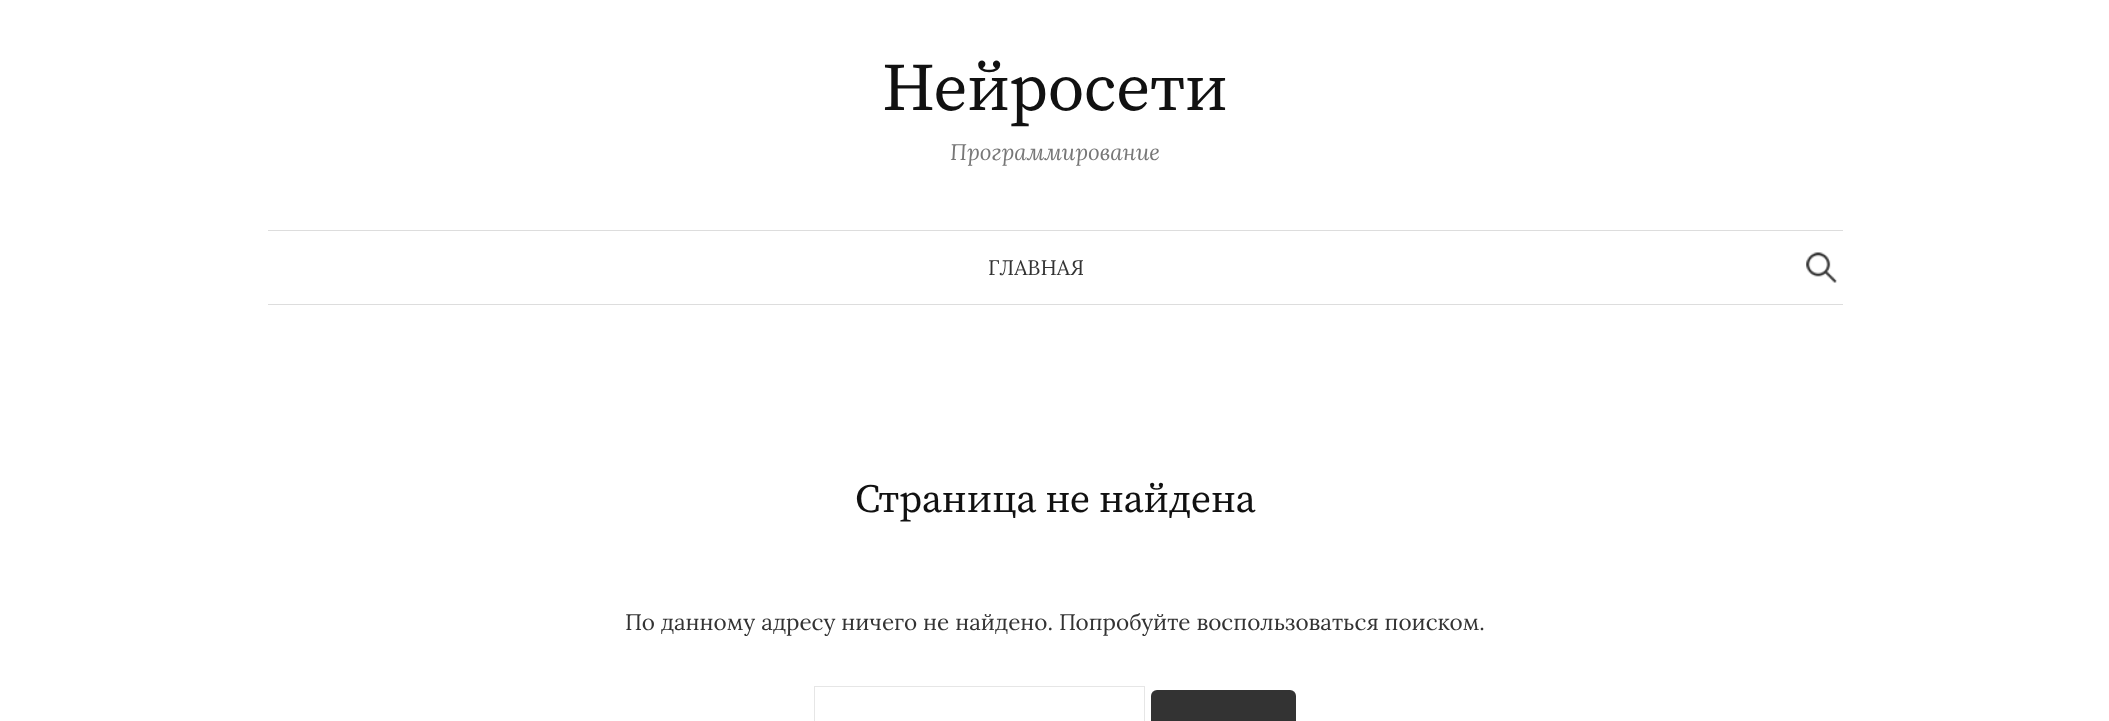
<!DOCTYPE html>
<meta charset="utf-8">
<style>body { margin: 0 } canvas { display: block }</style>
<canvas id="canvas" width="2109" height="721"></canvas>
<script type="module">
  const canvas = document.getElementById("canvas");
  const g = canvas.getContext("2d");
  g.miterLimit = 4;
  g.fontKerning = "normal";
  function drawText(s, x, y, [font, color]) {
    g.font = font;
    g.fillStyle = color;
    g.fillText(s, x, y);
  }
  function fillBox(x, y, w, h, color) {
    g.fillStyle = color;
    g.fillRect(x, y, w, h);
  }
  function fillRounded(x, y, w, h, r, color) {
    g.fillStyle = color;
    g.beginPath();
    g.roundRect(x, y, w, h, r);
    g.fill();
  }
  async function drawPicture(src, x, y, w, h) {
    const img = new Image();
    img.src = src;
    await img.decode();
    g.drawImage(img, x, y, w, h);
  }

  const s1 = ["67.5px Source Serif Pro", "#111111"];
  const s2 = ["italic 22.5px Lora", "#777777"];
  const s3 = ["21px Lora", "#333333"];
  const s4 = ["40px Source Serif Pro", "#111111"];
  const s5 = ["22.5px Lora", "#333333"];

  fillBox(0, 0, 2109, 721, "#FFFFFF");
  g.letterSpacing = "-0.75px";
  drawText("Нейросети", 882, 110, s1);
  g.letterSpacing = "0px";
  drawText("Программирование", 950, 160, s2);
  fillBox(268, 230, 1575, 1, "#DDDDDD");
  fillBox(268, 304, 1575, 1, "#DDDDDD");
  drawText("ГЛАВНАЯ", 988, 275, s3);
  await drawPicture("pic1.png", 1806, 252, 31, 31);
  g.letterSpacing = "-0.4px";
  drawText("Страница не найдена", 855, 512, s4);
  g.letterSpacing = "0px";
  drawText("По данному адресу ничего не найдено. Попробуйте воспользоваться поиском.", 625, 630, s5);
  g.strokeStyle = "#E6E6E6";
  g.strokeRect(814.5, 686.5, 330, 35);
  fillRounded(1151, 690, 145, 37, 6, "#333333");
</script>
